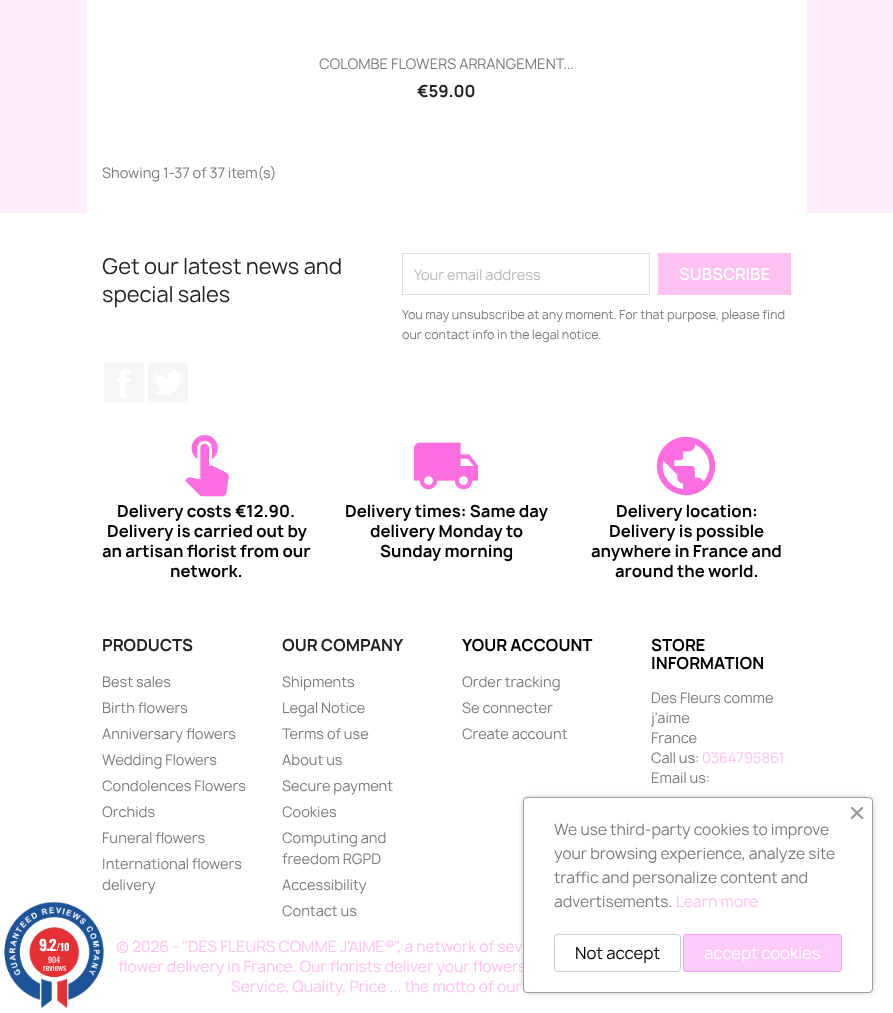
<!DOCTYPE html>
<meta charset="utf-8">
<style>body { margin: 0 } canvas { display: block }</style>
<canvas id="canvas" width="893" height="1013"></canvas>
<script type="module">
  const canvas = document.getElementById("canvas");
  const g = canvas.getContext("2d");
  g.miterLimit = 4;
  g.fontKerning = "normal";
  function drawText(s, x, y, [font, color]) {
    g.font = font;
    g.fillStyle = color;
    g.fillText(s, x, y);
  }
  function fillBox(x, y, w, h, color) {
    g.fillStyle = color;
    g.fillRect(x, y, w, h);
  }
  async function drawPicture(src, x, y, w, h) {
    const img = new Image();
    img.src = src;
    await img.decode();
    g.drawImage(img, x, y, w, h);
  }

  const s1 = ["14px Manrope", "#7A7A7A"];
  const s2 = ["bold 16px Manrope", "#232323"];
  const s3 = ["21px Manrope", "#232323"];
  const s4 = ["14px Manrope", "#B7B7B7"];
  const s5 = ["600 16px Manrope", "#FFFFFF"];
  const s6 = ["12px Manrope", "#7A7A7A"];
  const s7 = ["bold 16px Manrope", "#000000"];
  const s8 = ["14px Manrope", "#FFC0F2"];
  const s9 = ["15px Manrope", "#FFC0F2"];
  const s10 = ["bold 15px Oswald", "#FFFFFF"];
  const s11 = ["bold 10px Oswald", "#FFFFFF"];
  const s12 = ["8px Oswald", "#FFFFFF"];
  const s13 = ["8.5px Oswald", "#FFFFFF"];
  const s14 = ["15px Manrope", "#7A7A7A"];
  const s15 = ["16px Manrope", "#000000"];
  const s16 = ["16px Manrope", "#FFFFFF"];

  fillBox(0, 0, 893, 1013, "#FFFFFF");
  fillBox(0, 0, 893, 213, "#FEEDFB");
  fillBox(87, 0, 720, 213, "#FFFFFF");
  drawText("COLOMBE FLOWERS ARRANGEMENT...", 319, 69, s1);
  drawText("€59.00", 417, 97, s2);
  drawText("Showing 1-37 of 37 item(s)", 102, 178, s1);
  drawText("Get our latest news and", 102, 274, s3);
  drawText("special sales", 102, 302, s3);
  g.strokeStyle = "#DDDDDD";
  g.strokeRect(402.5, 253.5, 247, 41);
  drawText("Your email address", 414, 280, s4);
  fillBox(658, 253, 133, 42, "#FFC0F2");
  drawText("SUBSCRIBE", 679, 280, s5);
  drawText("You may unsubscribe at any moment. For that purpose, please find", 402, 319, s6);
  drawText("our contact info in the legal notice.", 402, 339, s6);
  fillBox(104, 363, 40, 40, "#F6F6F6");
  await drawPicture("pic1.png", 117, 369, 14, 29);
  fillBox(148, 363, 40, 40, "#F6F6F6");
  await drawPicture("pic2.png", 155, 371, 28, 24);
  await drawPicture("pic3.png", 185, 435, 44, 62);
  drawText("Delivery costs €12.90.", 117, 517, s7);
  drawText("Delivery is carried out by", 107, 537, s7);
  drawText("an artisan florist from our", 102, 557, s7);
  drawText("network.", 170, 577, s7);
  await drawPicture("pic4.png", 413, 442, 66, 48);
  drawText("Delivery times: Same day", 345, 517, s7);
  drawText("delivery Monday to", 370, 537, s7);
  drawText("Sunday morning", 380, 557, s7);
  await drawPicture("pic5.png", 656, 436, 60, 60);
  drawText("Delivery location:", 616, 517, s7);
  drawText("Delivery is possible", 609, 537, s7);
  drawText("anywhere in France and", 591, 557, s7);
  drawText("around the world.", 615, 577, s7);
  drawText("PRODUCTS", 102, 651, s2);
  drawText("Best sales", 102, 687, s1);
  drawText("Birth flowers", 102, 713, s1);
  drawText("Anniversary flowers", 102, 739, s1);
  drawText("Wedding Flowers", 102, 765, s1);
  drawText("Condolences Flowers", 102, 791, s1);
  drawText("Orchids", 102, 817, s1);
  drawText("Funeral flowers", 102, 843, s1);
  drawText("International flowers", 102, 869, s1);
  drawText("delivery", 102, 890, s1);
  drawText("OUR COMPANY", 282, 651, s2);
  drawText("Shipments", 282, 687, s1);
  drawText("Legal Notice", 282, 713, s1);
  drawText("Terms of use", 282, 739, s1);
  drawText("About us", 282, 765, s1);
  drawText("Secure payment", 282, 791, s1);
  drawText("Cookies", 282, 817, s1);
  drawText("Computing and", 282, 843, s1);
  drawText("freedom RGPD", 282, 864, s1);
  drawText("Accessibility", 282, 890, s1);
  drawText("Contact us", 282, 916, s1);
  drawText("YOUR ACCOUNT", 462, 651, s7);
  drawText("Order tracking", 462, 687, s1);
  drawText("Se connecter", 462, 713, s1);
  drawText("Create account", 462, 739, s1);
  drawText("STORE", 651, 651, s7);
  drawText("INFORMATION", 651, 669, s7);
  drawText("Des Fleurs comme", 651, 703, s1);
  drawText("j'aime", 651, 723, s1);
  drawText("France", 651, 743, s1);
  drawText("Call us:", 651, 763, s1);
  drawText("0364795861", 702, 763, s8);
  drawText("Email us:", 651, 783, s1);
  drawText("© 2026 - \"DES FLEURS COMME J'AIME®\", a network of sev", 116, 952, s9);
  drawText("flower delivery in France. Our florists deliver your flowers", 118, 972, s9);
  drawText("Service, Quality, Price ... the motto of our", 231, 992, s9);
  await drawPicture("pic6.png", 4, 902, 100, 107);
  g.letterSpacing = "-1px";
  drawText("9.2", 39, 951, s10);
  g.letterSpacing = "0px";
  drawText("/10", 56, 951, s11);
  drawText("904", 48, 963, s12);
  drawText("reviews", 43, 971, s13);
  g.fillStyle = "#9E9E9E";
  g.filter = "blur(3.5px)";
  g.beginPath();
  g.roundRect(525, 799, 346, 192, 2);
  g.fill();
  g.filter = "none";
  g.fillStyle = "#FFFFFF";
  g.beginPath();
  g.roundRect(523.5, 797.5, 349, 195, 3.5);
  g.fill();
  g.strokeStyle = "#9E9E9E";
  g.stroke();
  g.fillStyle = "#999999";
  g.beginPath();
  g.moveTo(850.5, 818);
  g.lineTo(862, 806.5);
  g.lineTo(863.5, 808);
  g.lineTo(852, 819.5);
  g.closePath();
  g.fill();
  g.beginPath();
  g.moveTo(852, 806.5);
  g.lineTo(863.5, 818);
  g.lineTo(862, 819.5);
  g.lineTo(850.5, 808);
  g.closePath();
  g.fill();
  drawText("We use third-party cookies to improve", 554, 835, s14);
  drawText("your browsing experience, analyze site", 554, 859, s14);
  drawText("traffic and personalize content and", 554, 883, s14);
  drawText("advertisements.", 554, 907, s14);
  drawText("Learn more", 676, 907, s9);
  g.beginPath();
  g.roundRect(554.5, 934.5, 126, 37, 3.5);
  g.strokeStyle = "#CCCCCC";
  g.stroke();
  drawText("Not accept", 575, 959, s15);
  g.fillStyle = "#FFCBFB";
  g.beginPath();
  g.roundRect(683.5, 934.5, 158, 37, 2.5);
  g.fill();
  g.strokeStyle = "#FD9BFF";
  g.stroke();
  drawText("accept cookies", 704, 959, s16);
</script>
